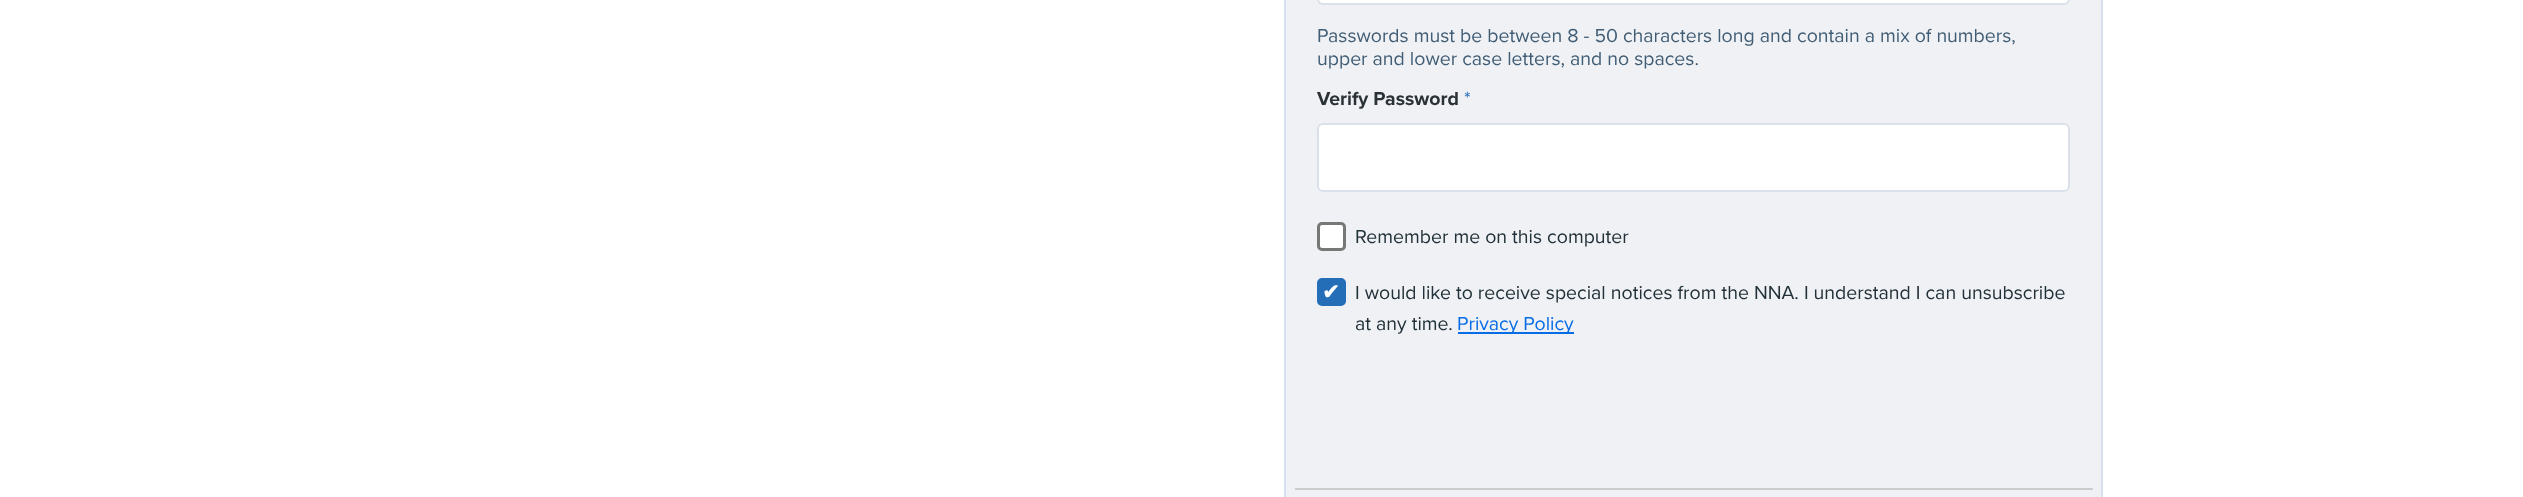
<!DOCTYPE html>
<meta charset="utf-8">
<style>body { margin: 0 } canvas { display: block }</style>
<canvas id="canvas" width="2523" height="497"></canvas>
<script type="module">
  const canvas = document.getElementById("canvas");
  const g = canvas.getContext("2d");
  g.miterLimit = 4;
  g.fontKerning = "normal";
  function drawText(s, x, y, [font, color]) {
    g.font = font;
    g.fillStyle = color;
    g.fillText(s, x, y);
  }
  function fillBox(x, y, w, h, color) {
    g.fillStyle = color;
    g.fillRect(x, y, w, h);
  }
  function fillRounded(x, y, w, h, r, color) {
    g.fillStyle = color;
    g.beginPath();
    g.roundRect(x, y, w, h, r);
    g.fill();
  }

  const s1 = ["19.5px Proxima Nova", "#415D75"];
  const s2 = ["bold 19.5px Proxima Nova", "#2B3237"];
  const s3 = ["19.5px Proxima Nova", "#246EB8"];
  const s4 = ["19.5px Proxima Nova", "#223139"];
  const s5 = ["bold 21px DejaVu Sans", "#FFFFFF"];
  const s6 = ["19.5px Proxima Nova", "#076DE6"];

  fillBox(0, 0, 2523, 497, "#FFFFFF");
  g.fillStyle = "#EFF1F4";
  g.beginPath();
  g.rect(1285, -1, 817, 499);
  g.fill();
  g.strokeStyle = "#D7E0EC";
  g.lineWidth = 2;
  g.stroke();
  fillRounded(1319, -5, 750, 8, 5, "#FFFFFF");
  g.beginPath();
  g.roundRect(1318, -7, 751, 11, 5);
  g.strokeStyle = "#DBE1EA";
  g.stroke();
  drawText("Passwords must be between 8 - 50 characters long and contain a mix of numbers,", 1317, 42, s1);
  drawText("upper and lower case letters, and no spaces.", 1317, 65, s1);
  drawText("Verify Password", 1317, 105, s2);
  drawText("*", 1464, 105, s3);
  g.fillStyle = "#FFFFFF";
  g.beginPath();
  g.roundRect(1318, 124, 751, 67, 5);
  g.fill();
  g.stroke();
  fillRounded(1320, 225, 23, 23, 1.5, "#FFFFFF");
  g.beginPath();
  g.roundRect(1318.5, 223.5, 26, 26, 3.5);
  g.strokeStyle = "#777777";
  g.lineWidth = 3;
  g.stroke();
  drawText("Remember me on this computer", 1355, 243, s4);
  g.fillStyle = "#246EB8";
  g.beginPath();
  g.roundRect(1318.5, 279.5, 26, 25, 3.5);
  g.fill();
  g.strokeStyle = "#246EB8";
  g.stroke();
  drawText("✔︎", 1322, 299, s5);
  drawText("I would like to receive special notices from the NNA. I understand I can unsubscribe", 1355, 299, s4);
  drawText("at any time.", 1355, 330, s4);
  fillBox(1458, 332, 116, 2, "#076DE6");
  drawText("Privacy Policy", 1457, 330, s6);
  fillBox(1295, 488, 798, 2, "#CCCCCC");
</script>
